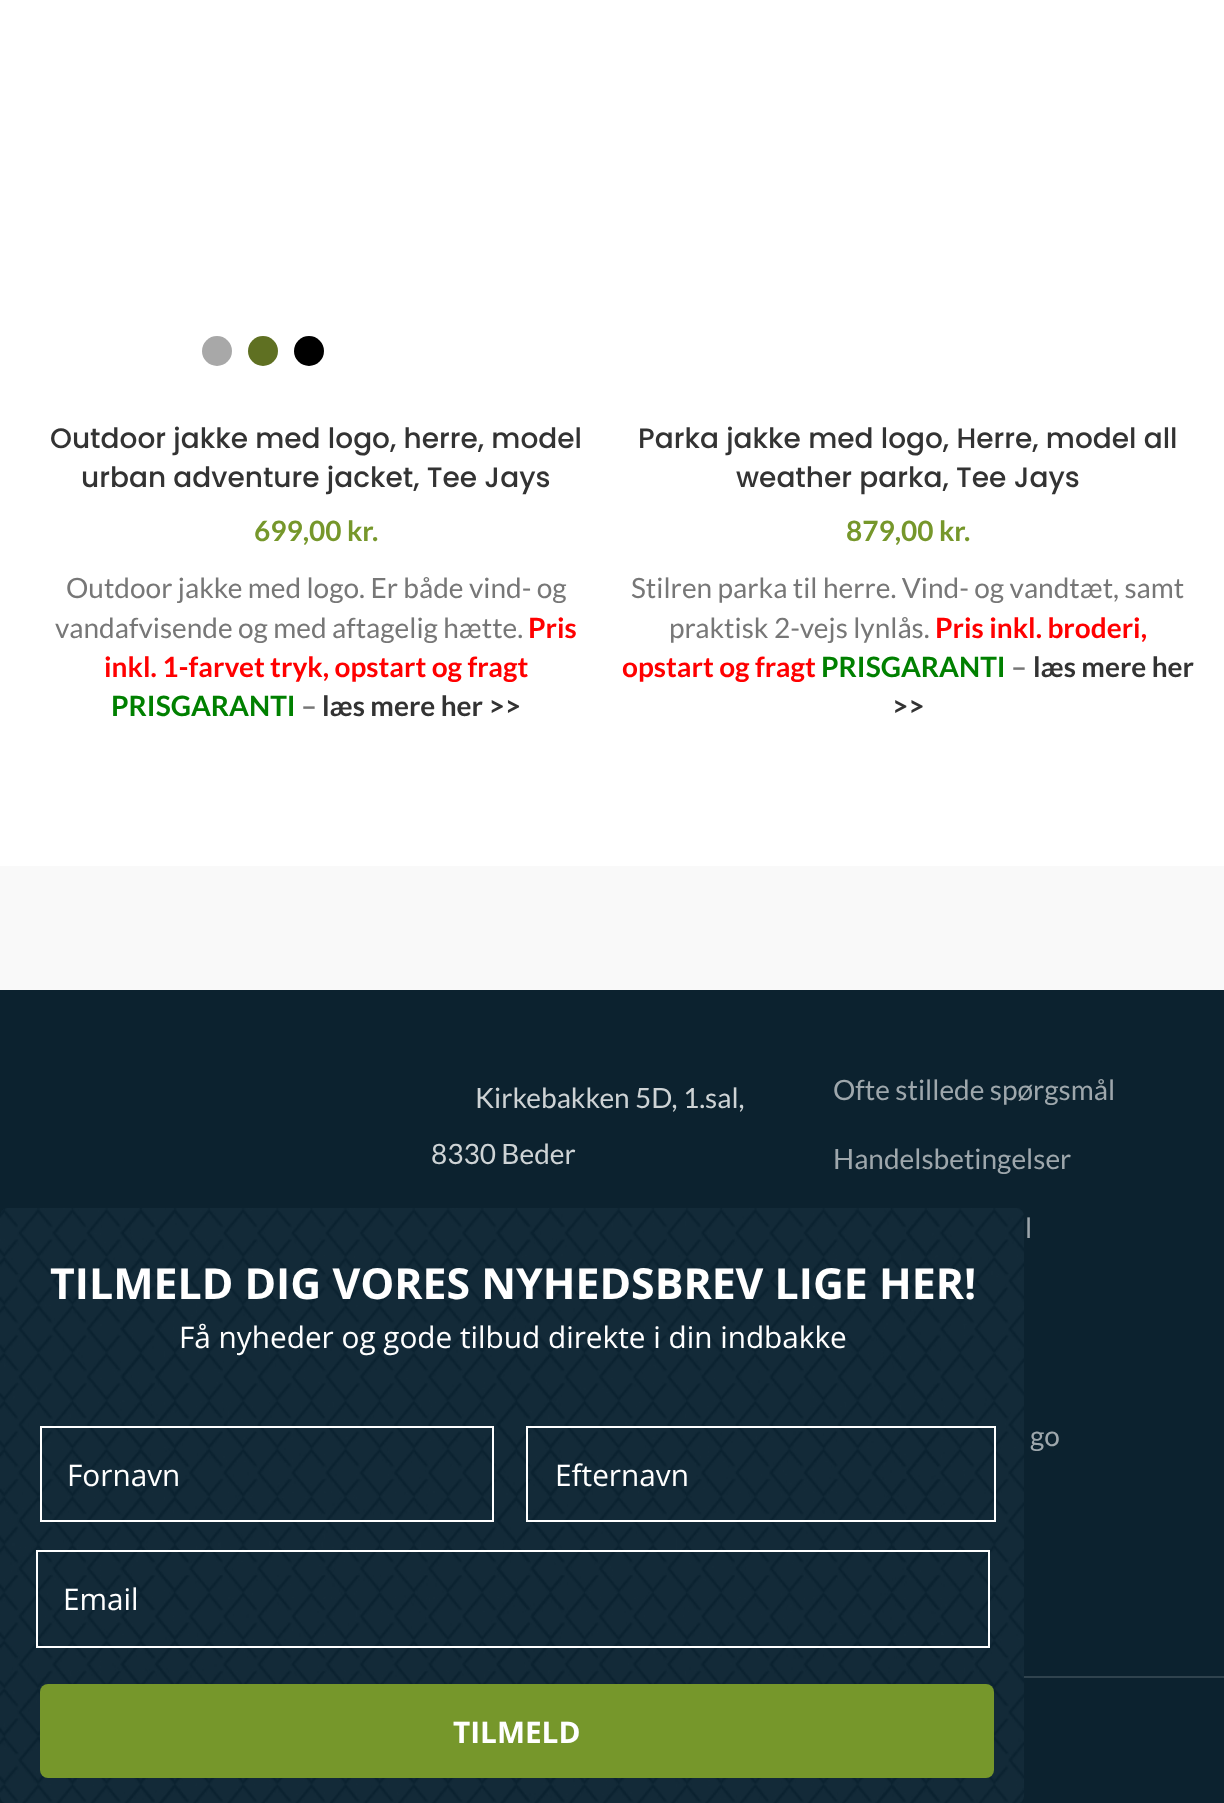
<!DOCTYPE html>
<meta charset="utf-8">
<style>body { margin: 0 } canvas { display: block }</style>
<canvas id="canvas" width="1224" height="1803"></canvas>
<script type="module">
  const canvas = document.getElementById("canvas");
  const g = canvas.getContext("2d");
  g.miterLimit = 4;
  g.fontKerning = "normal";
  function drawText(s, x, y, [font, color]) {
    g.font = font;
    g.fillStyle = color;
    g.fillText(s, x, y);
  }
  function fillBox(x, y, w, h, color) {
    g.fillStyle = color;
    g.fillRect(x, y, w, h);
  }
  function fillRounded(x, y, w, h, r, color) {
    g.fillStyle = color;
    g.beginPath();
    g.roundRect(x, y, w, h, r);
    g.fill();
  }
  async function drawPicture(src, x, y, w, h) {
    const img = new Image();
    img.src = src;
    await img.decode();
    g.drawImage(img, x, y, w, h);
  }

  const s1 = ["500 28px Poppins", "#333333"];
  const s2 = ["bold 28px Lato", "#76972B"];
  const s3 = ["28px Lato", "#777777"];
  const s4 = ["bold 28px Lato", "#FF0000"];
  const s5 = ["bold 28px Lato", "#008000"];
  const s6 = ["bold 28px Lato", "#777777"];
  const s7 = ["bold 28px Lato", "#333333"];
  const s8 = ["28px Lato", "#CED3D5"];
  const s9 = ["28px Lato", "#9EA7AC"];
  const s10 = ["bold 42.8px Open Sans", "#FFFFFF"];
  const s11 = ["29.75px Open Sans", "#FFFFFF"];
  const s12 = ["bold 29.75px Open Sans", "#FFFFFF"];

  fillBox(0, 0, 1224, 1803, "#FFFFFF");
  g.fillStyle = "#A8A8A8";
  g.beginPath();
  g.arc(217, 351, 15, 0, Math.PI * 2);
  g.fill();
  g.fillStyle = "#5F7022";
  g.beginPath();
  g.arc(263, 351, 15, 0, Math.PI * 2);
  g.fill();
  g.fillStyle = "#000000";
  g.beginPath();
  g.arc(309, 351, 15, 0, Math.PI * 2);
  g.fill();
  drawText("Outdoor jakke med logo, herre, model", 50, 448, s1);
  drawText("urban adventure jacket, Tee Jays", 81, 487, s1);
  drawText("699,00 kr.", 254, 541, s2);
  drawText("Outdoor jakke med logo. Er både vind- og", 66, 598, s3);
  drawText("vandafvisende og med aftagelig hætte.", 55, 638, s3);
  drawText("Pris", 528, 638, s4);
  drawText("inkl. 1-farvet tryk, opstart og fragt", 104, 677, s4);
  drawText("PRISGARANTI", 111, 716, s5);
  drawText("–", 301, 716, s6);
  drawText("læs mere her >>", 322, 716, s7);
  drawText("Parka jakke med logo, Herre, model all", 638, 448, s1);
  drawText("weather parka, Tee Jays", 736, 487, s1);
  drawText("879,00 kr.", 846, 541, s2);
  drawText("Stilren parka til herre. Vind- og vandtæt, samt", 631, 598, s3);
  drawText("praktisk 2-vejs lynlås.", 669, 638, s3);
  drawText("Pris inkl. broderi,", 935, 638, s4);
  drawText("opstart og fragt", 622, 677, s4);
  drawText("PRISGARANTI", 821, 677, s5);
  drawText("–", 1011, 677, s6);
  drawText("læs mere her", 1033, 677, s7);
  drawText(">>", 892, 716, s7);
  fillBox(0, 866, 1224, 124, "#F9F9F9");
  fillBox(0, 990, 1224, 813, "#0C222F");
  drawText("Kirkebakken 5D, 1.sal,", 475, 1108, s8);
  drawText("8330 Beder", 431, 1164, s8);
  drawText("Ofte stillede spørgsmål", 833, 1100, s9);
  drawText("Handelsbetingelser", 833, 1169, s9);
  drawText("l", 1025, 1238, s9);
  drawText("go", 1030, 1446, s9);
  fillBox(1024, 1676, 200, 2, "#30434E");
  await drawPicture("pic1.png", 0, 1208, 1024, 595);
  drawText("TILMELD DIG VORES NYHEDSBREV LIGE HER!", 50, 1299, s10);
  drawText("Få nyheder og gode tilbud direkte i din indbakke", 179, 1348, s11);
  g.strokeStyle = "#FFFFFF";
  g.lineWidth = 2;
  g.strokeRect(41, 1427, 452, 94);
  drawText("Fornavn", 67, 1486, s11);
  g.strokeRect(527, 1427, 468, 94);
  drawText("Efternavn", 555, 1486, s11);
  g.strokeRect(37, 1551, 952, 96);
  drawText("Email", 63, 1610, s11);
  fillRounded(40, 1684, 954, 94, 8, "#76972B");
  drawText("TILMELD", 453, 1743, s12);
</script>
